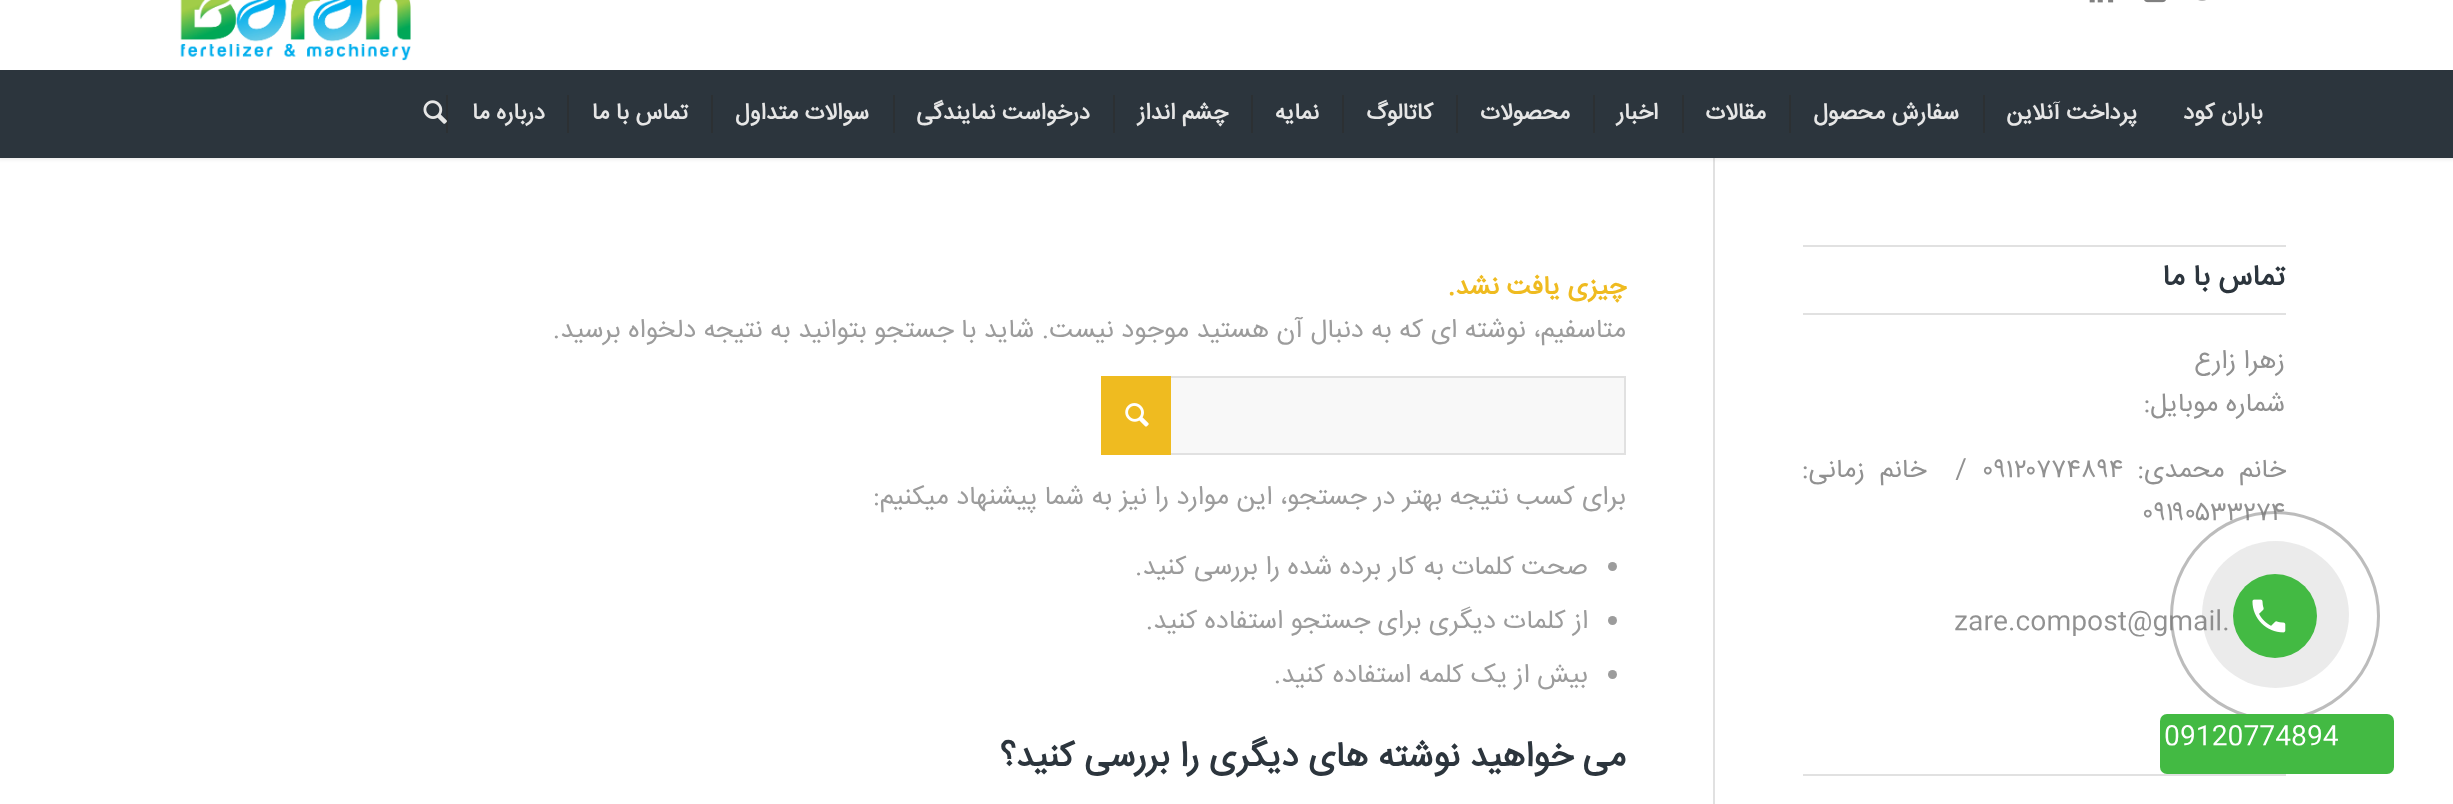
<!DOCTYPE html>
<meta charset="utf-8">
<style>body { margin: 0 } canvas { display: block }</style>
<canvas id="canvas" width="2453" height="804"></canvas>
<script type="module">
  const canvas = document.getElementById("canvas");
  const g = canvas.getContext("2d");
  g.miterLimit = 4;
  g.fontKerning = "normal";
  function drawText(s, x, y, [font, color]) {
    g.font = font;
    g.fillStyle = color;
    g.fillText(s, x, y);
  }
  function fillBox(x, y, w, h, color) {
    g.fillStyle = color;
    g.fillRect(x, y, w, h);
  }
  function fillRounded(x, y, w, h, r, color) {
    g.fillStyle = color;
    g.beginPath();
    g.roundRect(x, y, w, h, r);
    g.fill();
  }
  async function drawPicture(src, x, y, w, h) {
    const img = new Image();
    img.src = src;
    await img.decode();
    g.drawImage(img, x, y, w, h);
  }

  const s1 = ["bold 22.75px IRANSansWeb", "#E6E6E6"];
  const s2 = ["bold 29px IRANSansWeb", "#2C353D"];
  const s3 = ["26.25px IRANSansWeb", "#919191"];
  const s4 = ["bold 26.25px IRANSansWeb", "#EFBB20"];
  const s5 = ["26.25px IRANSansWeb", "#9C9C9C"];
  const s6 = ["bold 35px IRANSansWeb", "#2C353D"];
  const s7 = ["26.25px IRANSansWeb", "#FFFFFF"];

  fillBox(0, 0, 2453, 804, "#FFFFFF");
  fillBox(1713, 158, 2, 646, "#E1E1E1");
  g.fillStyle = "rgba(0, 0, 0, 0.1)";
  g.filter = "blur(2px)";
  g.beginPath();
  g.rect(-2, -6, 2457, 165);
  g.fill();
  g.filter = "none";
  fillBox(0, 0, 2453, 70, "#FFFFFF");
  await drawPicture("pic1.png", 2198, 0, 8, 1);
  await drawPicture("pic2.png", 2144, 0, 22, 3);
  await drawPicture("pic3.png", 2089, 0, 25, 3);
  await drawPicture("pic4.png", 180, 0, 231, 61);
  fillBox(0, 70, 2453, 88, "#2C353D");
  g.direction = "rtl";
  drawText("باران کود", 2263, 119, s1);
  drawText("پرداخت آنلاین", 2137, 119, s1);
  fillBox(1983, 95, 2, 38, "#2C3033");
  drawText("سفارش محصول", 1959, 119, s1);
  fillBox(1789, 95, 2, 38, "#2C3033");
  drawText("مقالات", 1766, 119, s1);
  fillBox(1682, 95, 2, 38, "#2C3033");
  drawText("اخبار", 1658, 119, s1);
  fillBox(1593, 95, 2, 38, "#2C3033");
  drawText("محصولات", 1570, 119, s1);
  fillBox(1456, 95, 2, 38, "#2C3033");
  drawText("کاتالوگ", 1433, 119, s1);
  fillBox(1342, 95, 2, 38, "#2C3033");
  drawText("نمایه", 1319, 119, s1);
  fillBox(1251, 95, 2, 38, "#2C3033");
  drawText("چشم انداز", 1228, 119, s1);
  fillBox(1113, 95, 2, 38, "#2C3033");
  drawText("درخواست نمایندگی", 1090, 119, s1);
  fillBox(893, 95, 2, 38, "#2C3033");
  drawText("سوالات متداول", 869, 119, s1);
  fillBox(711, 95, 2, 38, "#2C3033");
  drawText("تماس با ما", 688, 119, s1);
  fillBox(567, 95, 2, 38, "#2C3033");
  drawText("درباره ما", 545, 119, s1);
  fillBox(446, 95, 2, 38, "#2C3033");
  await drawPicture("pic5.png", 423, 100, 24, 24);
  fillBox(1803, 245, 483, 2, "#E1E1E1");
  fillBox(1803, 313, 483, 2, "#E1E1E1");
  drawText("تماس با ما", 2285, 285, s2);
  drawText("زهرا زارع", 2285, 368, s3);
  drawText("شماره موبایل:", 2285, 411, s3);
  g.wordSpacing = "7px";
  drawText("خانم محمدی:", 2286, 477, s3);
  g.wordSpacing = "0px";
  g.direction = "ltr";
  drawText("۰۹۱۲۰۷۷۴۸۹۴", 1982, 477, s3);
  g.wordSpacing = "7px";
  g.direction = "rtl";
  drawText("/  خانم زمانی:", 1967, 477, s3);
  g.wordSpacing = "0px";
  g.direction = "ltr";
  drawText("۰۹۱۹۰۵۳۳۲۷۴", 2142, 520, s3);
  drawText("zare.compost@gmail.", 1954, 629, s3);
  fillBox(1803, 774, 483, 2, "#E1E1E1");
  g.direction = "rtl";
  drawText("چیزی یافت نشد.", 1626, 294, s4);
  drawText("متاسفیم، نوشته ای که به دنبال آن هستید موجود نیست. شاید با جستجو بتوانید به نتیجه دلخواه برسید.", 1626, 337, s5);
  fillBox(1171, 378, 453, 75, "#F8F8F8");
  g.strokeStyle = "#E1E1E1";
  g.lineWidth = 2;
  g.strokeRect(1102, 377, 523, 77);
  fillBox(1101, 376, 70, 79, "#EFBB20");
  await drawPicture("pic6.png", 1125, 403, 24, 24);
  drawText("برای کسب نتیجه بهتر در جستجو، این موارد را نیز به شما پیشنهاد میکنیم:", 1626, 504, s5);
  g.beginPath();
  g.arc(1612.5, 566.5, 4.5, 0, Math.PI * 2);
  g.fill();
  drawText("صحت کلمات به کار برده شده را بررسی کنید.", 1588, 574, s5);
  g.beginPath();
  g.arc(1612.5, 620.5, 4.5, 0, Math.PI * 2);
  g.fill();
  drawText("از کلمات دیگری برای جستجو استفاده کنید.", 1588, 628, s5);
  g.beginPath();
  g.arc(1612.5, 674.5, 4.5, 0, Math.PI * 2);
  g.fill();
  drawText("بیش از یک کلمه استفاده کنید.", 1588, 682, s5);
  drawText("می خواهید نوشته های دیگری را بررسی کنید؟", 1626, 766, s6);
  g.beginPath();
  g.arc(2275, 616, 103.5, 0, Math.PI * 2);
  g.strokeStyle = "rgba(122, 122, 122, 0.5)";
  g.lineWidth = 3;
  g.stroke();
  g.fillStyle = "rgba(122, 122, 122, 0.15)";
  g.beginPath();
  g.arc(2275.5, 614.5, 73.5, 0, Math.PI * 2);
  g.fill();
  g.fillStyle = "#43BA43";
  g.beginPath();
  g.arc(2275, 616, 42, 0, Math.PI * 2);
  g.fill();
  await drawPicture("pic7.png", 2252, 599, 34, 34);
  fillRounded(2160, 714, 234, 60, 7, "#43BA43");
  g.direction = "ltr";
  drawText("09120774894", 2164, 744, s7);
</script>
